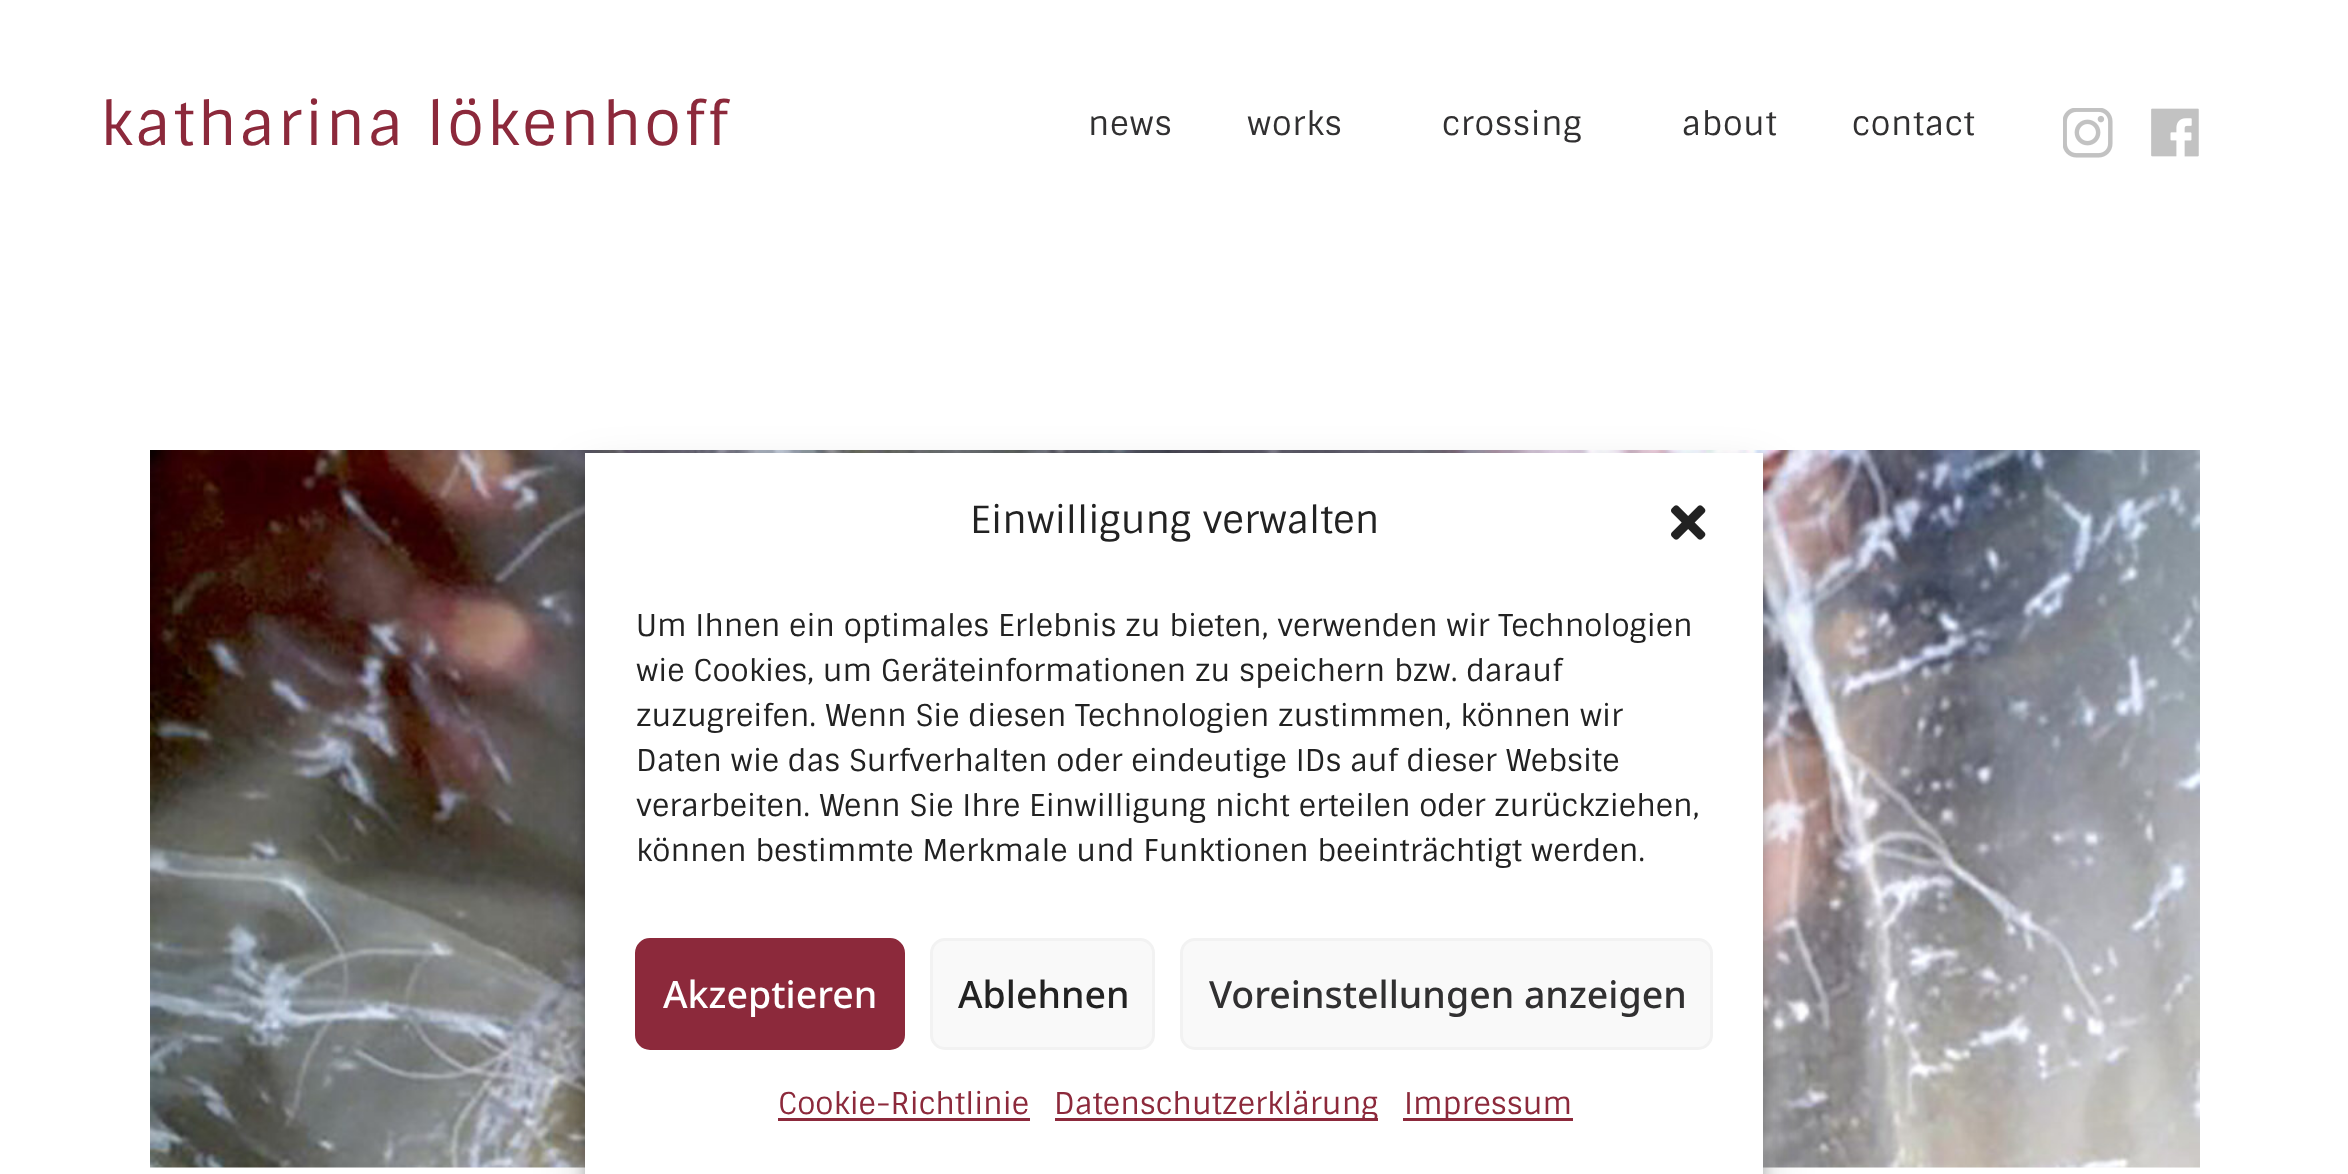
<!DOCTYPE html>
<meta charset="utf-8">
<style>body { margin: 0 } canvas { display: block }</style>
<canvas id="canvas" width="2348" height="1174"></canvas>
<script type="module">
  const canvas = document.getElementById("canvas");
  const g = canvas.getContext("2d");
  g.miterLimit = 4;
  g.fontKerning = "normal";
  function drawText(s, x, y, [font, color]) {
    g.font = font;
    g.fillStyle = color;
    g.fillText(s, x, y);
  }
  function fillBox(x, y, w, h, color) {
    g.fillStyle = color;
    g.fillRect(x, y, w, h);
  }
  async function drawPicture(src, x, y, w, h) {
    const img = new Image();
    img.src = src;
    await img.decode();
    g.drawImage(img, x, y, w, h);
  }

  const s1 = ["60px Sintony", "#8C293B"];
  const s2 = ["32.5px Sintony", "#313031"];
  const s3 = ["37.5px Sintony", "#222222"];
  const s4 = ["30px Sintony", "#222222"];
  const s5 = ["500 37.5px Noto Sans", "#FFFFFF"];
  const s6 = ["500 37.5px Noto Sans", "#222222"];
  const s7 = ["500 37.5px Noto Sans", "#313031"];
  const s8 = ["30px Sintony", "#8C293B"];

  fillBox(0, 0, 2348, 1174, "#FFFFFF");
  g.letterSpacing = "3px";
  drawText("katharina lökenhoff", 100, 145, s1);
  g.letterSpacing = "0.75px";
  drawText("news", 1088, 135, s2);
  drawText("works", 1247, 135, s2);
  drawText("crossing", 1442, 135, s2);
  drawText("about", 1682, 135, s2);
  drawText("contact", 1852, 135, s2);
  await drawPicture("pic1.png", 2063, 108, 50, 50);
  await drawPicture("pic2.png", 2151, 108, 48, 49);
  await drawPicture("pic3.png", 150, 450, 2050, 718);
  g.fillStyle = "rgba(0, 0, 0, 0.23)";
  g.filter = "blur(7.5px)";
  g.beginPath();
  g.rect(585, 468, 1178, 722);
  g.fill();
  g.filter = "none";
  g.fillStyle = "rgba(0, 0, 0, 0.19)";
  g.filter = "blur(25px)";
  g.beginPath();
  g.rect(585, 478, 1178, 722);
  g.fill();
  g.filter = "none";
  fillBox(585, 453, 1178, 721, "#FFFFFF");
  g.letterSpacing = "0px";
  drawText("Einwilligung verwalten", 970, 533, s3);
  await drawPicture("pic4.png", 1671, 505, 35, 35);
  drawText("Um Ihnen ein optimales Erlebnis zu bieten, verwenden wir Technologien", 636, 636, s4);
  drawText("wie Cookies, um Geräteinformationen zu speichern bzw. darauf", 636, 681, s4);
  drawText("zuzugreifen. Wenn Sie diesen Technologien zustimmen, können wir", 636, 726, s4);
  drawText("Daten wie das Surfverhalten oder eindeutige IDs auf dieser Website", 636, 771, s4);
  drawText("verarbeiten. Wenn Sie Ihre Einwilligung nicht erteilen oder zurückziehen,", 636, 816, s4);
  drawText("können bestimmte Merkmale und Funktionen beeinträchtigt werden.", 636, 861, s4);
  g.fillStyle = "#8C293B";
  g.beginPath();
  g.roundRect(636.5, 939.5, 267, 109, 13.5);
  g.fill();
  g.strokeStyle = "#8C293B";
  g.lineWidth = 3;
  g.stroke();
  drawText("Akzeptieren", 663, 1008, s5);
  g.fillStyle = "#F9F9F9";
  g.beginPath();
  g.roundRect(931.5, 939.5, 222, 109, 13.5);
  g.fill();
  g.strokeStyle = "#F2F2F2";
  g.stroke();
  drawText("Ablehnen", 958, 1008, s6);
  g.fillStyle = "#F9F9F9";
  g.beginPath();
  g.roundRect(1181.5, 939.5, 530, 109, 13.5);
  g.fill();
  g.stroke();
  drawText("Voreinstellungen anzeigen", 1209, 1008, s7);
  drawText("Cookie-Richtlinie", 778, 1114, s8);
  fillBox(778, 1118, 252, 3, "#8C293B");
  fillBox(1055, 1118, 323, 3, "#8C293B");
  drawText("Datenschutzerklärung", 1054, 1114, s8);
  fillBox(1403, 1118, 170, 3, "#8C293B");
  drawText("Impressum", 1404, 1114, s8);
</script>
